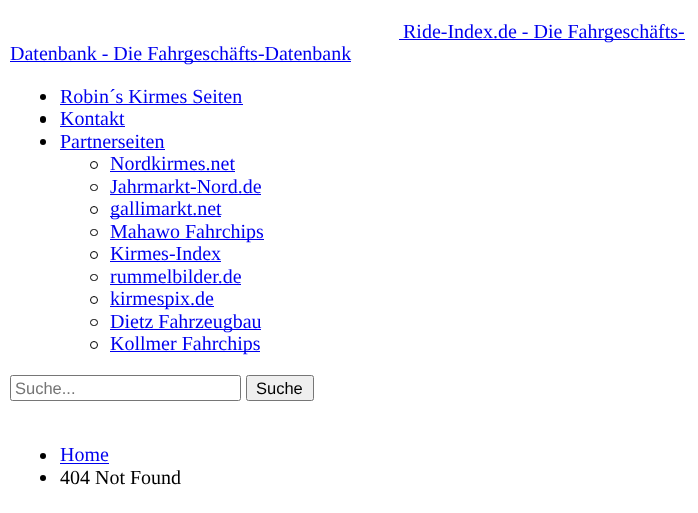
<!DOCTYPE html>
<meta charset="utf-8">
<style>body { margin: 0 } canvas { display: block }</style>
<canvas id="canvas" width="698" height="513"></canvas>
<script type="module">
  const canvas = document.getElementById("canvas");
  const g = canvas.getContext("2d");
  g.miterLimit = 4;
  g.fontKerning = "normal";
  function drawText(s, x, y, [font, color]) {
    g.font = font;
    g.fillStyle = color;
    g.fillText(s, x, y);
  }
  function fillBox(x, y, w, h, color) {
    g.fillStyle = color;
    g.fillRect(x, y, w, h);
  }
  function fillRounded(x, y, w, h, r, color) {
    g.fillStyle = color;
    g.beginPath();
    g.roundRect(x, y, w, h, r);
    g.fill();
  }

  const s1 = ["20px Liberation Serif", "#0000EE"];
  const s2 = ["16.5px Liberation Sans", "#757575"];
  const s3 = ["16.5px Liberation Sans", "#000000"];
  const s4 = ["20px Liberation Serif", "#000000"];

  fillBox(0, 0, 698, 513, "#FFFFFF");
  fillBox(399, 39, 286, 1, "#0000EE");
  drawText("Ride-Index.de - Die Fahrgeschäfts-", 403, 38, s1);
  fillBox(10, 61, 341, 1, "#0000EE");
  drawText("Datenbank - Die Fahrgeschäfts-Datenbank", 10, 60, s1);
  g.fillStyle = "#000000";
  g.beginPath();
  g.arc(43, 97, 3, 0, Math.PI * 2);
  g.fill();
  drawText("Robin´s Kirmes Seiten", 60, 103, s1);
  fillBox(60, 104, 183, 1, "#0000EE");
  fillRounded(40, 116, 6, 7, 3, "#000000");
  drawText("Kontakt", 60, 125, s1);
  fillBox(60, 126, 65, 1, "#0000EE");
  g.fillStyle = "#000000";
  g.beginPath();
  g.arc(43, 142, 3, 0, Math.PI * 2);
  g.fill();
  drawText("Partnerseiten", 60, 148, s1);
  fillBox(60, 149, 105, 1, "#0000EE");
  g.beginPath();
  g.arc(94, 165, 3.5, 0, Math.PI * 2);
  g.strokeStyle = "#000000";
  g.stroke();
  drawText("Nordkirmes.net", 110, 170, s1);
  fillBox(110, 171, 125, 1, "#0000EE");
  g.beginPath();
  g.roundRect(90.5, 184.5, 7, 6, 3);
  g.stroke();
  drawText("Jahrmarkt-Nord.de", 110, 193, s1);
  fillBox(110, 194, 151, 1, "#0000EE");
  g.beginPath();
  g.arc(94, 210, 3.5, 0, Math.PI * 2);
  g.stroke();
  fillBox(110, 216, 111, 1, "#0000EE");
  drawText("gallimarkt.net", 110, 215, s1);
  g.beginPath();
  g.roundRect(90.5, 229.5, 7, 6, 3);
  g.stroke();
  fillBox(110, 239, 154, 1, "#0000EE");
  drawText("Mahawo Fahrchips", 110, 238, s1);
  g.beginPath();
  g.arc(94, 255, 3.5, 0, Math.PI * 2);
  g.stroke();
  drawText("Kirmes-Index", 110, 260, s1);
  fillBox(110, 261, 111, 1, "#0000EE");
  g.beginPath();
  g.roundRect(90.5, 274.5, 7, 6, 3);
  g.stroke();
  drawText("rummelbilder.de", 110, 283, s1);
  fillBox(110, 284, 131, 1, "#0000EE");
  g.beginPath();
  g.arc(94, 300, 3.5, 0, Math.PI * 2);
  g.stroke();
  fillBox(110, 306, 104, 1, "#0000EE");
  drawText("kirmespix.de", 110, 305, s1);
  g.beginPath();
  g.roundRect(90.5, 319.5, 7, 6, 3);
  g.stroke();
  fillBox(110, 329, 151, 1, "#0000EE");
  drawText("Dietz Fahrzeugbau", 110, 328, s1);
  g.beginPath();
  g.arc(94, 345, 3.5, 0, Math.PI * 2);
  g.stroke();
  fillBox(110, 351, 150, 1, "#0000EE");
  drawText("Kollmer Fahrchips", 110, 350, s1);
  g.beginPath();
  g.roundRect(10.5, 375.5, 230, 25, 2);
  g.strokeStyle = "#767676";
  g.stroke();
  drawText("Suche...", 15, 394, s2);
  g.fillStyle = "#EFEFEF";
  g.beginPath();
  g.roundRect(246.5, 375.5, 67, 25, 2);
  g.fill();
  g.stroke();
  drawText("Suche", 256, 394, s3);
  g.beginPath();
  g.arc(43, 456, 3, 0, Math.PI * 2);
  g.fill();
  drawText("Home", 60, 461, s1);
  fillBox(60, 463, 49, 1, "#0000EE");
  g.fillStyle = "#000000";
  g.beginPath();
  g.arc(43, 478, 3, 0, Math.PI * 2);
  g.fill();
  drawText("404 Not Found", 60, 484, s4);
</script>
